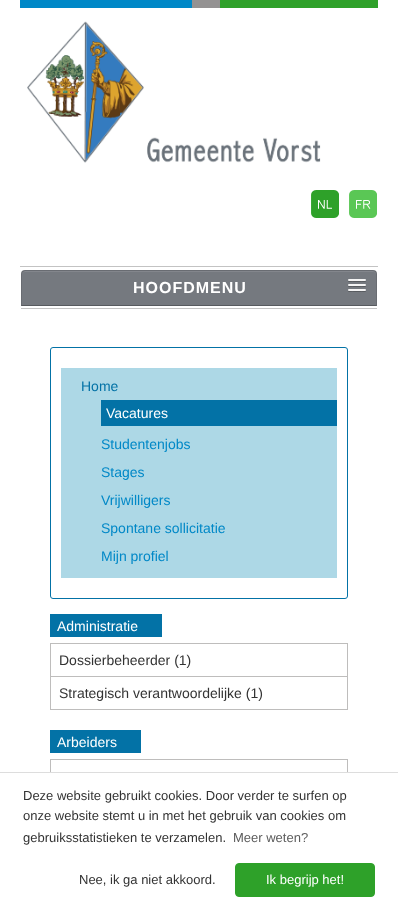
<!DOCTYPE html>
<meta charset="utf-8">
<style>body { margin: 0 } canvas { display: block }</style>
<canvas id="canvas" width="398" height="910"></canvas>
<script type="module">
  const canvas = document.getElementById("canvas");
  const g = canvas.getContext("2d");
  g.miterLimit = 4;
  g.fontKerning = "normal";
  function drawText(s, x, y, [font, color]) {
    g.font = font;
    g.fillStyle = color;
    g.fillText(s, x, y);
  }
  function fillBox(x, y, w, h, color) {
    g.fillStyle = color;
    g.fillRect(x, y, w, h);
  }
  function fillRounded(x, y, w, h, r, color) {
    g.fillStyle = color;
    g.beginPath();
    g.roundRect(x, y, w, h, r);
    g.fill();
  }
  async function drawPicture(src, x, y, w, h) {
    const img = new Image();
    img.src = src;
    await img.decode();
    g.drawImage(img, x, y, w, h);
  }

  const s1 = ["bold 16px Liberation Sans", "#FFFFFF"];
  const s2 = ["14px Liberation Sans", "#0372A6"];
  const s3 = ["14px Liberation Sans", "#FFFFFF"];
  const s4 = ["14px Liberation Sans", "#0088C7"];
  const s5 = ["14px Liberation Sans", "#333333"];
  const s6 = ["13px Liberation Sans", "#333333"];
  const s7 = ["13px Liberation Sans", "#5C5C5C"];
  const s8 = ["13px Liberation Sans", "#FFFFFF"];

  fillBox(0, 0, 398, 910, "#FFFFFF");
  await drawPicture("pic1.png", 20, 0, 358, 8);
  fillBox(20, 266, 358, 1, "#C3C3C3");
  await drawPicture("pic2.png", 27, 21, 294, 142);
  await drawPicture("pic3.png", 311, 190, 28, 28);
  await drawPicture("pic4.png", 349, 190, 28, 28);
  fillBox(21, 308, 356, 1, "#C3C3C3");
  g.fillStyle = "#75797F";
  g.beginPath();
  g.roundRect(21, 270, 356, 36, [4, 4, 0, 0]);
  g.fill();
  g.fillStyle = "#83868C";
  g.beginPath();
  g.moveTo(25, 272);
  g.lineTo(373, 272);
  g.bezierCurveTo(375, 272, 376, 273, 376, 275);
  g.bezierCurveTo(376, 273, 375, 271, 373, 271);
  g.lineTo(25, 271);
  g.lineTo(23, 272);
  g.lineTo(22, 275);
  g.bezierCurveTo(22, 273, 23, 272, 25, 272);
  g.closePath();
  g.fill();
  g.fillStyle = "rgba(0, 0, 0, 0.1)";
  g.beginPath();
  g.moveTo(25, 270);
  g.lineTo(22, 271);
  g.lineTo(23, 272);
  g.lineTo(25, 271);
  g.lineTo(373, 271);
  g.lineTo(375, 272);
  g.lineTo(376, 271);
  g.lineTo(373, 270);
  g.closePath();
  g.fill();
  g.beginPath();
  g.moveTo(377, 306);
  g.lineTo(377, 274);
  g.bezierCurveTo(377, 273, 376.5, 272, 376, 271);
  g.lineTo(375, 272);
  g.bezierCurveTo(376, 272, 376, 273, 376, 274);
  g.lineTo(376, 305);
  g.closePath();
  g.fill();
  g.fillStyle = "rgba(0, 0, 0, 0.25)";
  g.beginPath();
  g.moveTo(377, 306);
  g.lineTo(376, 305);
  g.lineTo(22, 305);
  g.lineTo(21, 306);
  g.closePath();
  g.fill();
  g.fillStyle = "rgba(0, 0, 0, 0.1)";
  g.beginPath();
  g.moveTo(21, 306);
  g.lineTo(22, 305);
  g.lineTo(22, 274);
  g.bezierCurveTo(22, 273, 22, 272, 23, 272);
  g.lineTo(22, 271);
  g.bezierCurveTo(21.5, 272, 21, 273, 21, 274);
  g.closePath();
  g.fill();
  g.letterSpacing = "1px";
  drawText("HOOFDMENU", 133, 293, s1);
  g.fillStyle = "#585B5F";
  g.beginPath();
  g.moveTo(348, 280.5);
  g.bezierCurveTo(347, 282.5, 351.5, 282, 351.5, 282);
  g.lineTo(362.5, 282);
  g.bezierCurveTo(362.5, 282, 367, 282.5, 366, 280.5);
  g.bezierCurveTo(365, 281.5, 358.5, 281, 357, 281);
  g.bezierCurveTo(355.5, 281, 349, 281.5, 348, 280.5);
  g.closePath();
  g.fill();
  fillRounded(348, 279, 18, 2, 1, "#F5F5F5");
  g.fillStyle = "#585B5F";
  g.beginPath();
  g.moveTo(348, 285.5);
  g.bezierCurveTo(347, 287.5, 351.5, 287, 351.5, 287);
  g.lineTo(362.5, 287);
  g.bezierCurveTo(362.5, 287, 367, 287.5, 366, 285.5);
  g.bezierCurveTo(365, 286.5, 358.5, 286, 357, 286);
  g.bezierCurveTo(355.5, 286, 349, 286.5, 348, 285.5);
  g.closePath();
  g.fill();
  fillRounded(348, 284, 18, 2, 1, "#F5F5F5");
  g.fillStyle = "#585B5F";
  g.beginPath();
  g.moveTo(348, 290.5);
  g.bezierCurveTo(347, 292.5, 351.5, 292, 351.5, 292);
  g.lineTo(362.5, 292);
  g.bezierCurveTo(362.5, 292, 367, 292.5, 366, 290.5);
  g.bezierCurveTo(365, 291.5, 358.5, 291, 357, 291);
  g.bezierCurveTo(355.5, 291, 349, 291.5, 348, 290.5);
  g.closePath();
  g.fill();
  fillRounded(348, 289, 18, 2, 1, "#F5F5F5");
  g.beginPath();
  g.roundRect(50.5, 347.5, 297, 251, 2.5);
  g.strokeStyle = "#0372A6";
  g.stroke();
  fillBox(61, 368, 276, 210, "#ADD8E6");
  g.letterSpacing = "0px";
  drawText("Home", 81, 391, s2);
  fillBox(101, 400, 236, 26, "#0372A6");
  drawText("Vacatures", 106, 418, s3);
  drawText("Studentenjobs", 101, 449, s4);
  drawText("Stages", 101, 477, s4);
  drawText("Vrijwilligers", 101, 505, s4);
  drawText("Spontane sollicitatie", 101, 533, s4);
  drawText("Mijn profiel", 101, 561, s4);
  fillBox(50, 614, 112, 23, "#0372A6");
  drawText("Administratie", 57, 631, s3);
  g.strokeStyle = "#BEBDBC";
  g.strokeRect(50.5, 643.5, 297, 66);
  fillBox(51, 676, 296, 1, "#BEBDBC");
  drawText("Dossierbeheerder (1)", 59, 665, s5);
  drawText("Strategisch verantwoordelijke (1)", 59, 698, s5);
  fillBox(50, 730, 91, 23, "#0372A6");
  drawText("Arbeiders", 57, 747, s3);
  g.strokeRect(50.5, 759.5, 297, 33);
  fillBox(50, 773, 298, 20, "#FFFFFF");
  fillBox(0, 772, 398, 1, "#DDDDDD");
  drawText("Deze website gebruikt cookies. Door verder te surfen op", 23, 800, s6);
  drawText("onze website stemt u in met het gebruik van cookies om", 23, 820, s6);
  drawText("gebruiksstatistieken te verzamelen.", 23, 842, s6);
  drawText("Meer weten?", 233, 842, s7);
  drawText("Nee, ik ga niet akkoord.", 79, 884, s6);
  g.fillStyle = "#2EA129";
  g.beginPath();
  g.roundRect(235.5, 863.5, 139, 33, 3.5);
  g.fill();
  g.strokeStyle = "#2EA129";
  g.stroke();
  drawText("Ik begrijp het!", 266, 884, s8);
</script>
